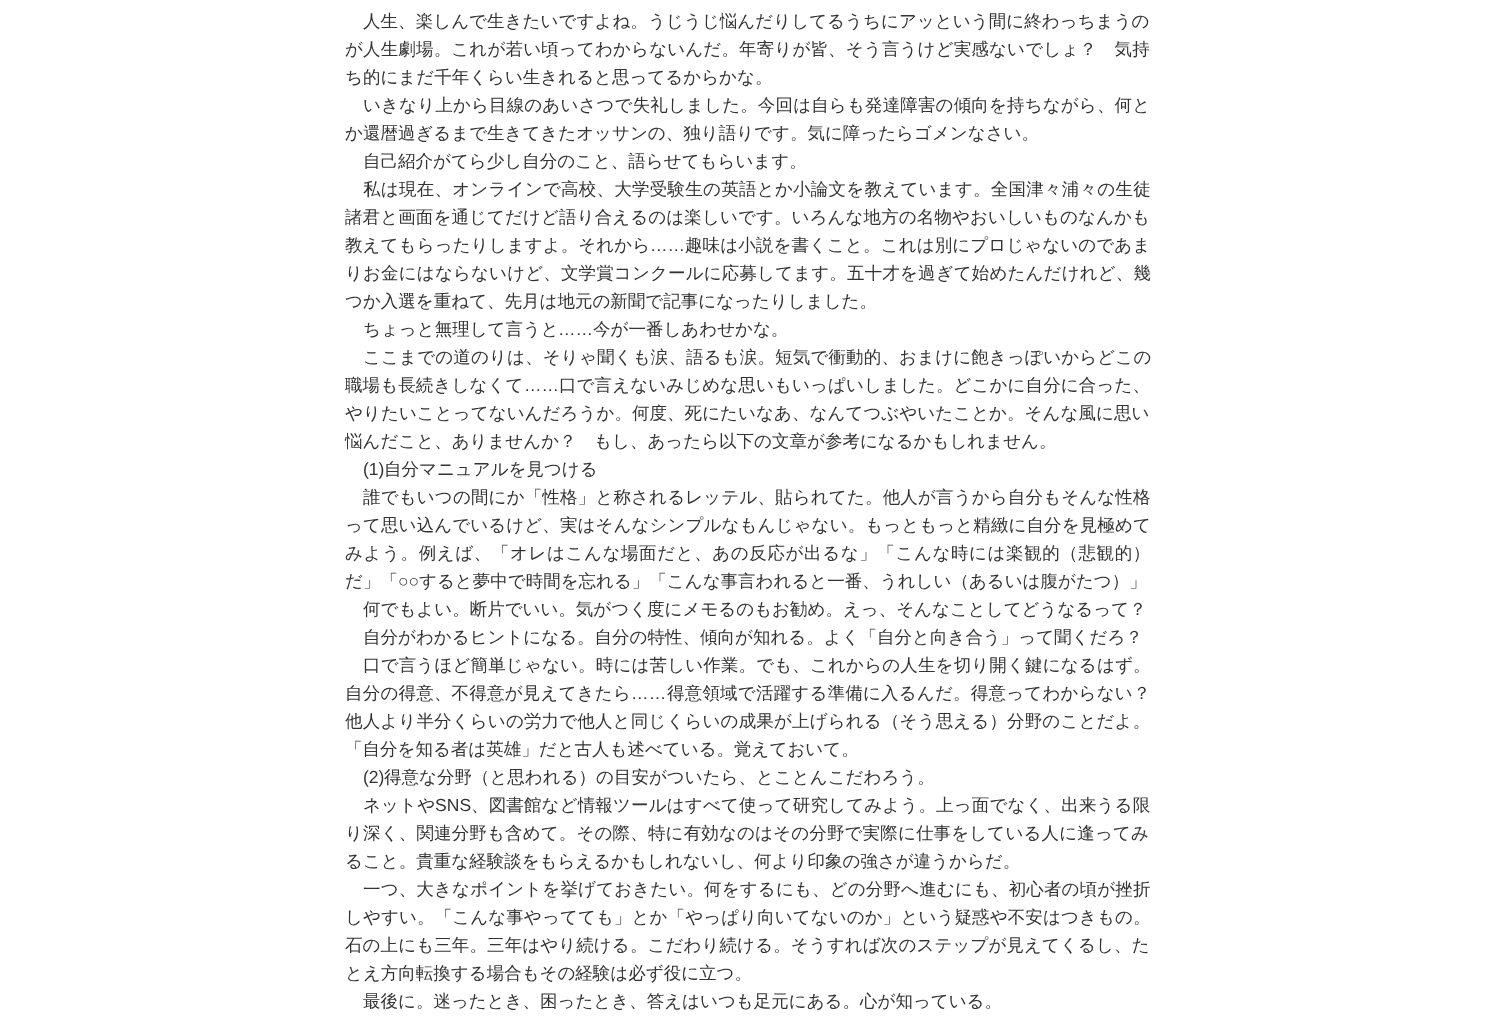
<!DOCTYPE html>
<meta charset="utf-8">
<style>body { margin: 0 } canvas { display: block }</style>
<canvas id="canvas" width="1495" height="1028"></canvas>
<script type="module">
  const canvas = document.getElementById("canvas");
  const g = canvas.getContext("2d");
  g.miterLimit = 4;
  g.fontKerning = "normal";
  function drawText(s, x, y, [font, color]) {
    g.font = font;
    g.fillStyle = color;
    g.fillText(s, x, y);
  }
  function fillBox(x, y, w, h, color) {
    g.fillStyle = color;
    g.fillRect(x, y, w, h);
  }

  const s1 = ["500 17.5px WenQuanYi Zen Hei", "#333333"];
  const s2 = ["17.5px Liberation Sans", "#333333"];

  fillBox(0, 0, 1495, 1028, "#FFFFFF");
  g.letterSpacing = "0.05px";
  drawText("人生、楽しんで生きたいですよね。うじうじ悩んだりしてるうちにアッという間に終わっちまうの", 363, 27, s1);
  g.letterSpacing = "0.15px";
  drawText("が人生劇場。これが若い頃ってわからないんだ。年寄りが皆、そう言うけど実感ないでしょ？　気持", 345, 55, s1);
  g.letterSpacing = "0px";
  drawText("ち的にまだ千年くらい生きれると思ってるからかな。", 345, 83, s1);
  g.letterSpacing = "0.15px";
  drawText("いきなり上から目線のあいさつで失礼しました。今回は自らも発達障害の傾向を持ちながら、何と", 363, 111, s1);
  g.letterSpacing = "0px";
  drawText("か還暦過ぎるまで生きてきたオッサンの、独り語りです。気に障ったらゴメンなさい。", 345, 139, s1);
  drawText("自己紹介がてら少し自分のこと、語らせてもらいます。", 363, 167, s1);
  g.letterSpacing = "0.25px";
  drawText("私は現在、オンラインで高校、大学受験生の英語とか小論文を教えています。全国津々浦々の生徒", 363, 195, s1);
  g.letterSpacing = "0.1px";
  drawText("諸君と画面を通じてだけど語り合えるのは楽しいです。いろんな地方の名物やおいしいものなんかも", 345, 223, s1);
  drawText("教えてもらったりしますよ。それから", 345, 251, s1);
  drawText("……", 650, 251, s2);
  drawText("趣味は小説を書くこと。これは別にプロじゃないのであま", 685, 251, s1);
  g.letterSpacing = "0.15px";
  drawText("りお金にはならないけど、文学賞コンクールに応募してます。五十才を過ぎて始めたんだけれど、幾", 345, 279, s1);
  g.letterSpacing = "0px";
  drawText("つか入選を重ねて、先月は地元の新聞で記事になったりしました。", 345, 307, s1);
  drawText("ちょっと無理して言うと", 363, 335, s1);
  drawText("……", 558, 335, s2);
  drawText("今が一番しあわせかな。", 593, 335, s1);
  g.letterSpacing = "0.15px";
  drawText("ここまでの道のりは、そりゃ聞くも涙、語るも涙。短気で衝動的、おまけに飽きっぽいからどこの", 363, 363, s1);
  g.letterSpacing = "0.1px";
  drawText("職場も長続きしなくて", 345, 391, s1);
  drawText("……", 524, 391, s2);
  drawText("口で言えないみじめな思いもいっぱいしました。どこかに自分に合った、", 559, 391, s1);
  g.letterSpacing = "0.05px";
  drawText("やりたいことってないんだろうか。何度、死にたいなあ、なんてつぶやいたことか。そんな風に思い", 345, 419, s1);
  g.letterSpacing = "0px";
  drawText("悩んだこと、ありませんか？　もし、あったら以下の文章が参考になるかもしれません。", 345, 447, s1);
  drawText("(1)", 363, 475, s2);
  drawText("自分マニュアルを見つける", 384, 475, s1);
  g.letterSpacing = "0.15px";
  drawText("誰でもいつの間にか「性格」と称されるレッテル、貼られてた。他人が言うから自分もそんな性格", 363, 503, s1);
  g.letterSpacing = "0.1px";
  drawText("って思い込んでいるけど、実はそんなシンプルなもんじゃない。もっともっと精緻に自分を見極めて", 345, 531, s1);
  g.letterSpacing = "0.6px";
  drawText("みよう。例えば、「オレはこんな場面だと、あの反応が出るな」「こんな時には楽観的（悲観的）", 345, 559, s1);
  g.letterSpacing = "0px";
  drawText("だ」「", 345, 587, s1);
  drawText("○○", 398, 587, s2);
  drawText("すると夢中で時間を忘れる」「こんな事言われると一番、うれしい（あるいは腹がたつ）」", 419, 587, s1);
  drawText("何でもよい。断片でいい。気がつく度にメモるのもお勧め。えっ、そんなことしてどうなるって？", 363, 615, s1);
  drawText("自分がわかるヒントになる。自分の特性、傾向が知れる。よく「自分と向き合う」って聞くだろ？", 363, 643, s1);
  g.letterSpacing = "0.15px";
  drawText("口で言うほど簡単じゃない。時には苦しい作業。でも、これからの人生を切り開く鍵になるはず。", 363, 671, s1);
  g.letterSpacing = "0.2px";
  drawText("自分の得意、不得意が見えてきたら", 345, 699, s1);
  drawText("……", 631, 699, s2);
  drawText("得意領域で活躍する準備に入るんだ。得意ってわからない？", 667, 699, s1);
  g.letterSpacing = "0.15px";
  drawText("他人より半分くらいの労力で他人と同じくらいの成果が上げられる（そう思える）分野のことだよ。", 345, 727, s1);
  g.letterSpacing = "0px";
  drawText("「自分を知る者は英雄」だと古人も述べている。覚えておいて。", 345, 755, s1);
  drawText("(2)", 363, 783, s2);
  drawText("得意な分野（と思われる）の目安がついたら、とことんこだわろう。", 384, 783, s1);
  g.letterSpacing = "0.15px";
  drawText("ネットや", 363, 811, s1);
  drawText("SNS", 435, 811, s2);
  drawText("、図書館など情報ツールはすべて使って研究してみよう。上っ面でなく、出来うる限", 471, 811, s1);
  drawText("り深く、関連分野も含めて。その際、特に有効なのはその分野で実際に仕事をしている人に逢ってみ", 345, 839, s1);
  g.letterSpacing = "0px";
  drawText("ること。貴重な経験談をもらえるかもしれないし、何より印象の強さが違うからだ。", 345, 867, s1);
  g.letterSpacing = "0.15px";
  drawText("一つ、大きなポイントを挙げておきたい。何をするにも、どの分野へ進むにも、初心者の頃が挫折", 363, 895, s1);
  g.letterSpacing = "0.1px";
  drawText("しやすい。「こんな事やってても」とか「やっぱり向いてないのか」という疑惑や不安はつきもの。", 345, 923, s1);
  drawText("石の上にも三年。三年はやり続ける。こだわり続ける。そうすれば次のステップが見えてくるし、た", 345, 951, s1);
  g.letterSpacing = "0px";
  drawText("とえ方向転換する場合もその経験は必ず役に立つ。", 345, 979, s1);
  drawText("最後に。迷ったとき、困ったとき、答えはいつも足元にある。心が知っている。", 363, 1007, s1);
</script>
